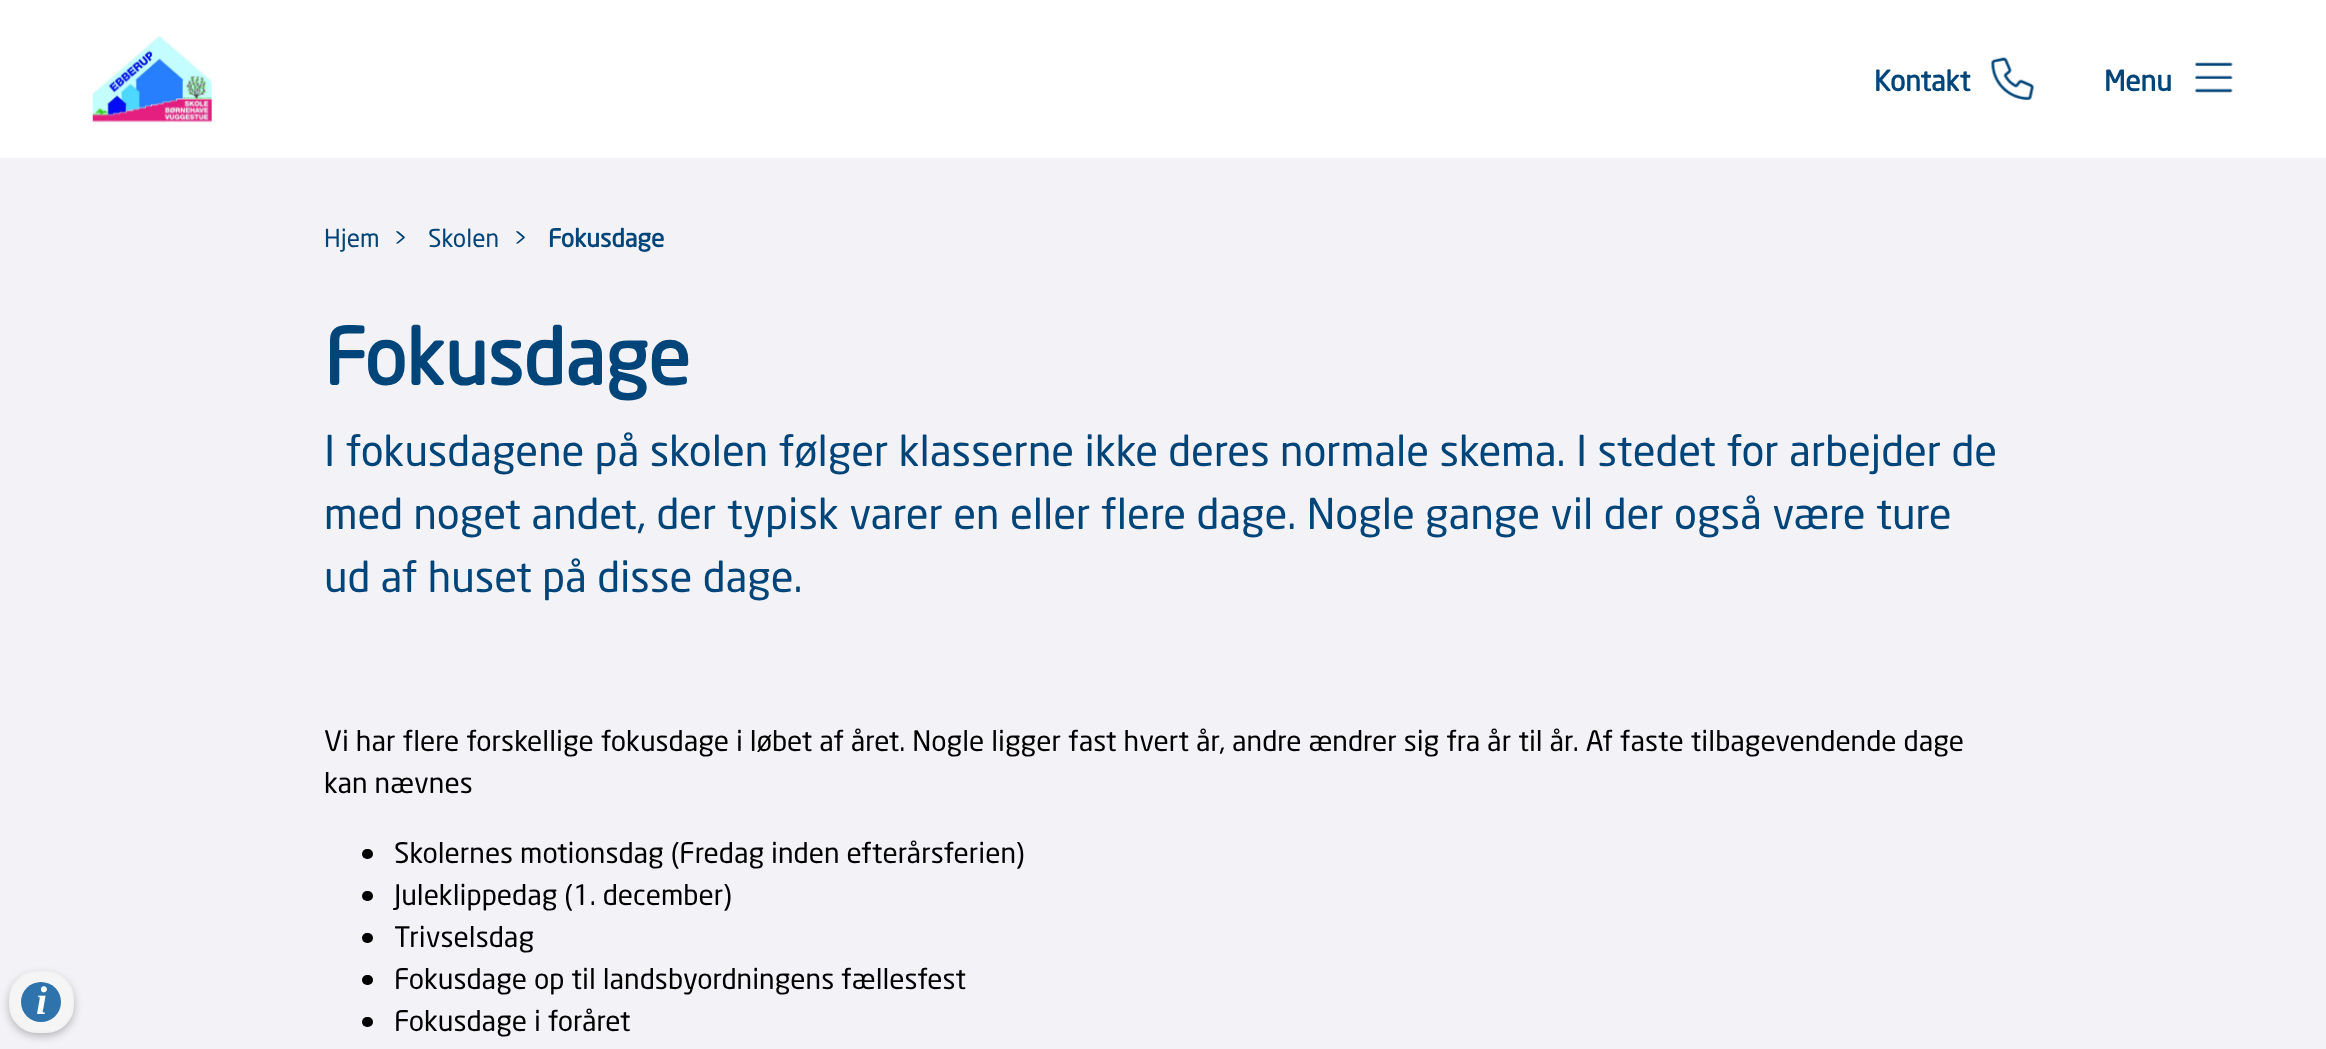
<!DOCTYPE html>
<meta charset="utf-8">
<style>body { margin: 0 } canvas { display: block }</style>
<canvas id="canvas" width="2326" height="1049"></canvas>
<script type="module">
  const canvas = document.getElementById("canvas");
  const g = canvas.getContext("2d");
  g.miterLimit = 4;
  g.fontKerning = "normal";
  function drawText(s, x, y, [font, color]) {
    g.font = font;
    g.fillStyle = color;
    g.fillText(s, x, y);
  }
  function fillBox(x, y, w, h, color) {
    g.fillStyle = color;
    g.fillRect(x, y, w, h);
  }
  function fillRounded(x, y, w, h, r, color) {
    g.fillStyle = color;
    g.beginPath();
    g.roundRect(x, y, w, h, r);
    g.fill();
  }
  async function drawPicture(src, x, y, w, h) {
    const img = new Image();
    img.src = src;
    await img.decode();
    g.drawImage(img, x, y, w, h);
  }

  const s1 = ["italic bold 40px Liberation Serif", "#FFFFFF"];
  const s2 = ["bold 28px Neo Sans", "#00457A"];
  const s3 = ["24.5px Neo Sans", "#00457A"];
  const s4 = ["bold 24.5px Neo Sans", "#00457A"];
  const s5 = ["bold 77px Neo Sans", "#00457A"];
  const s6 = ["42px Neo Sans", "#00457A"];
  const s7 = ["28px Neo Sans", "#000000"];

  fillBox(0, 0, 2326, 1049, "#F3F3F7");
  g.fillStyle = "rgba(0, 0, 0, 0.26)";
  g.filter = "blur(4.5px)";
  g.beginPath();
  g.roundRect(9, 975, 65, 61, 28);
  g.fill();
  g.filter = "none";
  g.fillStyle = "#F5F5F5";
  g.beginPath();
  g.roundRect(10, 972, 63, 60, 27);
  g.fill();
  g.strokeStyle = "#F2F2F2";
  g.lineWidth = 2;
  g.stroke();
  g.fillStyle = "#2E73AB";
  g.beginPath();
  g.arc(41, 1002, 20, 0, Math.PI * 2);
  g.fill();
  drawText("i", 36, 1014, s1);
  fillBox(0, 0, 2326, 158, "#FFFFFF");
  await drawPicture("pic1.png", 92, 36, 120, 87);
  drawText("Kontakt", 1874, 91, s2);
  await drawPicture("pic2.png", 1991, 57, 43, 43);
  drawText("Menu", 2104, 91, s2);
  await drawPicture("pic3.png", 2194, 62, 39, 31);
  drawText("Hjem", 324, 247, s3);
  drawText(">", 393, 247, s3);
  drawText("Skolen", 428, 247, s3);
  drawText(">", 513, 247, s3);
  drawText("Fokusdage", 548, 247, s4);
  drawText("Fokusdage", 324, 385, s5);
  drawText("I fokusdagene på skolen følger klasserne ikke deres normale skema. I stedet for arbejder de", 324, 466, s6);
  drawText("med noget andet, der typisk varer en eller flere dage. Nogle gange vil der også være ture", 324, 529, s6);
  drawText("ud af huset på disse dage.", 324, 592, s6);
  drawText("Vi har flere forskellige fokusdage i løbet af året. Nogle ligger fast hvert år, andre ændrer sig fra år til år. Af faste tilbagevendende dage", 324, 751, s7);
  drawText("kan nævnes", 324, 793, s7);
  fillRounded(362, 849, 11, 10, 5, "#000000");
  drawText("Skolernes motionsdag (Fredag inden efterårsferien)", 394, 863, s7);
  fillRounded(362, 891, 11, 10, 5, "#000000");
  drawText("Juleklippedag (1. december)", 394, 905, s7);
  fillRounded(362, 933, 11, 10, 5, "#000000");
  drawText("Trivselsdag", 394, 947, s7);
  fillRounded(362, 975, 11, 10, 5, "#000000");
  drawText("Fokusdage op til landsbyordningens fællesfest", 394, 989, s7);
  fillRounded(362, 1017, 11, 10, 5, "#000000");
  drawText("Fokusdage i foråret", 394, 1031, s7);
</script>
